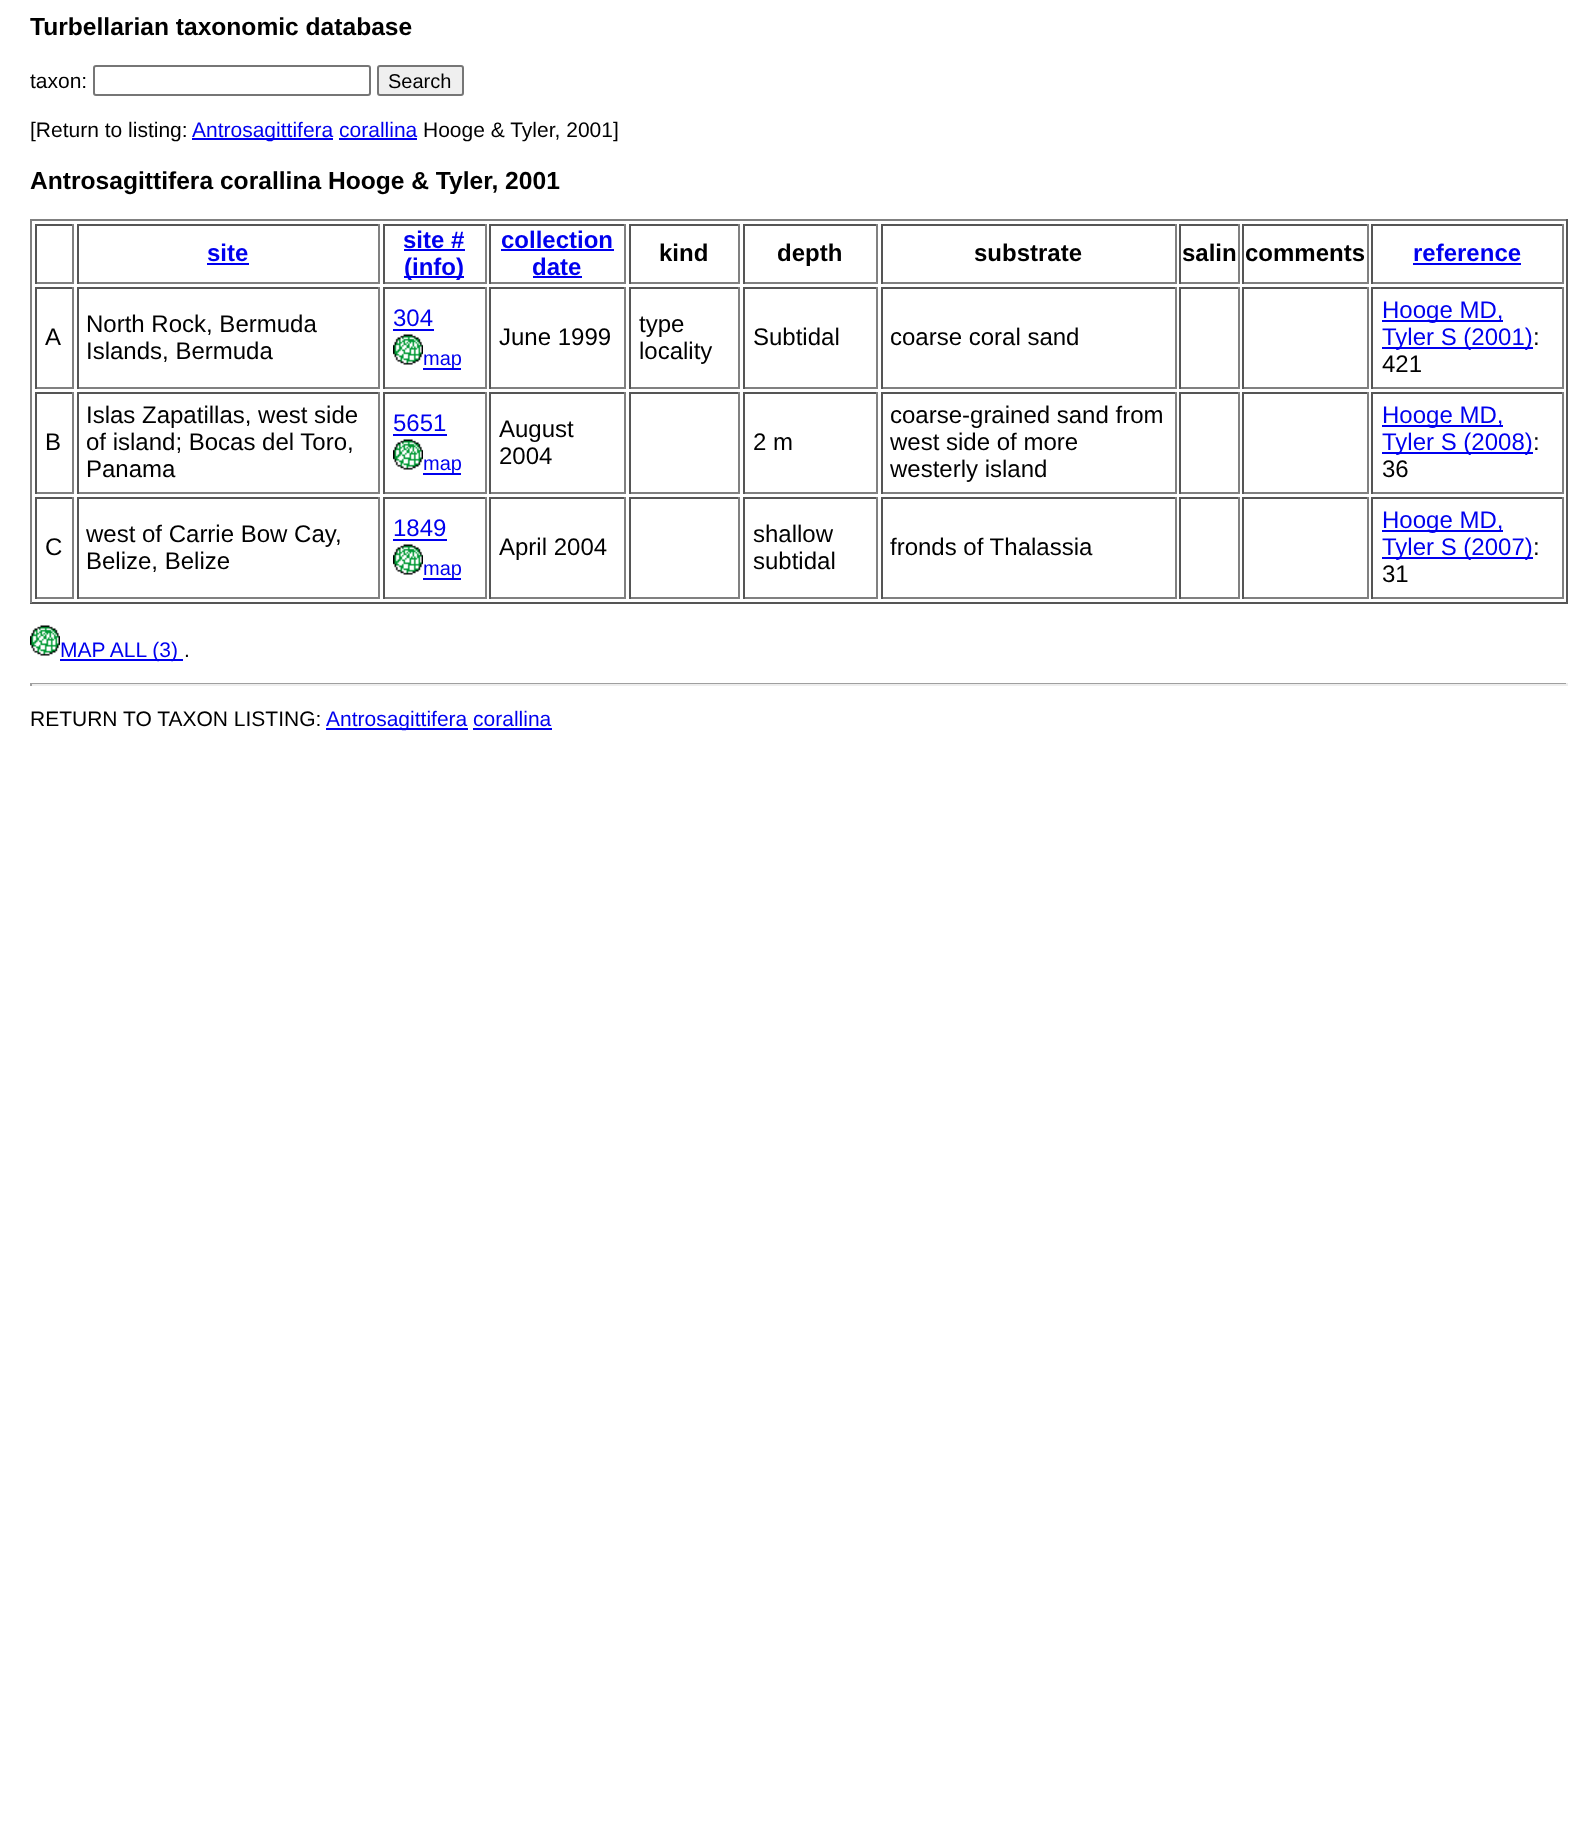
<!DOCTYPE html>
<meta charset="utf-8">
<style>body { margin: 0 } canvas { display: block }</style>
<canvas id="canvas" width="1579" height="1828"></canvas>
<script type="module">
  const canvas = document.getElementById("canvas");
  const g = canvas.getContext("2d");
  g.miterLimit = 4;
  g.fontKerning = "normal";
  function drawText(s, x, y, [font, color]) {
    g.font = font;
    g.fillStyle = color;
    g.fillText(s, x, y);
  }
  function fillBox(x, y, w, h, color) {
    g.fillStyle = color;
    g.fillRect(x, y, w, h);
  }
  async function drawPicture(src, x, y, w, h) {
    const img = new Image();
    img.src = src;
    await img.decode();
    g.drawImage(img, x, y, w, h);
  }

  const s1 = ["bold 24.6px Liberation Sans", "#000000"];
  const s2 = ["21px Liberation Sans", "#000000"];
  const s3 = ["20px Liberation Sans", "#000000"];
  const s4 = ["21px Liberation Sans", "#0000EE"];
  const s5 = ["bold 24px Liberation Sans", "#0000EE"];
  const s6 = ["bold 24px Liberation Sans", "#000000"];
  const s7 = ["24px Liberation Sans", "#000000"];
  const s8 = ["24px Liberation Sans", "#0000EE"];
  const s9 = ["20px Liberation Sans", "#0000EE"];

  fillBox(0, 0, 1579, 1828, "#FFFFFF");
  drawText("Turbellarian taxonomic database", 30, 35, s1);
  drawText("taxon:", 30, 88, s2);
  g.beginPath();
  g.roundRect(94, 66, 276, 29, 2);
  g.strokeStyle = "#767676";
  g.lineWidth = 2;
  g.stroke();
  g.fillStyle = "#EFEFEF";
  g.beginPath();
  g.roundRect(378, 66, 85, 29, 2);
  g.fill();
  g.stroke();
  drawText("Search", 388, 88, s3);
  drawText("[Return to listing:", 30, 137, s2);
  fillBox(192, 138, 141, 2, "#0000EE");
  drawText("Antrosagittifera corallina", 192, 137, s4);
  drawText("Hooge & Tyler, 2001]", 423, 137, s2);
  fillBox(339, 138, 78, 2, "#0000EE");
  drawText("Antrosagittifera corallina Hooge & Tyler, 2001", 30, 189, s1);
  fillBox(30, 219, 1538, 2, "#808080");
  fillBox(1566, 219, 2, 384, "#555555");
  fillBox(30, 602, 1538, 2, "#555555");
  fillBox(30, 219, 2, 384, "#808080");
  fillBox(35, 224, 39, 2, "#555555");
  fillBox(72, 224, 2, 60, "#808080");
  fillBox(35, 282, 39, 2, "#808080");
  fillBox(35, 224, 2, 60, "#555555");
  fillBox(77, 224, 303, 2, "#555555");
  fillBox(378, 224, 2, 60, "#808080");
  fillBox(77, 282, 303, 2, "#808080");
  fillBox(77, 224, 2, 60, "#555555");
  drawText("site", 207, 261, s5);
  fillBox(207, 263, 42, 2, "#0000EE");
  fillBox(383, 224, 103, 2, "#555555");
  fillBox(485, 224, 2, 60, "#808080");
  fillBox(383, 282, 103, 2, "#808080");
  fillBox(383, 224, 2, 60, "#555555");
  drawText("site #", 403, 248, s5);
  fillBox(404, 249, 61, 2, "#0000EE");
  fillBox(404, 276, 60, 2, "#0000EE");
  drawText("(info)", 404, 275, s5);
  fillBox(489, 224, 137, 2, "#555555");
  fillBox(624, 224, 2, 60, "#808080");
  fillBox(489, 282, 137, 2, "#808080");
  fillBox(489, 224, 2, 60, "#555555");
  drawText("collection", 501, 248, s5);
  fillBox(501, 249, 113, 2, "#0000EE");
  drawText("date", 532, 275, s5);
  fillBox(533, 276, 49, 2, "#0000EE");
  fillBox(629, 224, 111, 2, "#555555");
  fillBox(738, 224, 2, 60, "#808080");
  fillBox(629, 282, 111, 2, "#808080");
  fillBox(629, 224, 2, 60, "#555555");
  drawText("kind", 659, 261, s6);
  fillBox(743, 224, 135, 2, "#555555");
  fillBox(876, 224, 2, 60, "#808080");
  fillBox(743, 282, 135, 2, "#808080");
  fillBox(743, 224, 2, 60, "#555555");
  drawText("depth", 777, 261, s6);
  fillBox(881, 224, 295, 2, "#555555");
  fillBox(1175, 224, 2, 60, "#808080");
  fillBox(881, 282, 295, 2, "#808080");
  fillBox(881, 224, 2, 60, "#555555");
  drawText("substrate", 974, 261, s6);
  fillBox(1179, 224, 60, 2, "#555555");
  fillBox(1238, 224, 2, 60, "#808080");
  fillBox(1179, 282, 60, 2, "#808080");
  fillBox(1179, 224, 2, 60, "#555555");
  drawText("salin", 1182, 261, s6);
  fillBox(1242, 224, 126, 2, "#555555");
  fillBox(1367, 224, 2, 60, "#808080");
  fillBox(1242, 282, 126, 2, "#808080");
  fillBox(1242, 224, 2, 60, "#555555");
  drawText("comments", 1245, 261, s6);
  fillBox(1371, 224, 192, 2, "#555555");
  fillBox(1562, 224, 2, 60, "#808080");
  fillBox(1371, 282, 192, 2, "#808080");
  fillBox(1371, 224, 2, 60, "#555555");
  drawText("reference", 1413, 261, s5);
  fillBox(1413, 263, 108, 2, "#0000EE");
  fillBox(35, 287, 39, 2, "#555555");
  fillBox(72, 287, 2, 102, "#808080");
  fillBox(35, 387, 39, 2, "#808080");
  fillBox(35, 287, 2, 102, "#555555");
  drawText("A", 45, 345, s7);
  fillBox(77, 287, 303, 2, "#555555");
  fillBox(378, 287, 2, 102, "#808080");
  fillBox(77, 387, 303, 2, "#808080");
  fillBox(77, 287, 2, 102, "#555555");
  drawText("North Rock, Bermuda", 86, 332, s7);
  drawText("Islands, Bermuda", 86, 359, s7);
  fillBox(383, 287, 103, 2, "#555555");
  fillBox(485, 287, 2, 102, "#808080");
  fillBox(383, 387, 103, 2, "#808080");
  fillBox(383, 287, 2, 102, "#555555");
  drawText("304", 393, 326, s8);
  fillBox(393, 329, 41, 2, "#0000EE");
  await drawPicture("pic1.png", 393, 334, 30, 31);
  fillBox(423, 368, 38, 2, "#0000EE");
  drawText("map", 423, 365, s9);
  fillBox(489, 287, 137, 2, "#555555");
  fillBox(624, 287, 2, 102, "#808080");
  fillBox(489, 387, 137, 2, "#808080");
  fillBox(489, 287, 2, 102, "#555555");
  drawText("June 1999", 499, 345, s7);
  fillBox(629, 287, 111, 2, "#555555");
  fillBox(738, 287, 2, 102, "#808080");
  fillBox(629, 387, 111, 2, "#808080");
  fillBox(629, 287, 2, 102, "#555555");
  drawText("type", 639, 332, s7);
  drawText("locality", 639, 359, s7);
  fillBox(743, 287, 135, 2, "#555555");
  fillBox(876, 287, 2, 102, "#808080");
  fillBox(743, 387, 135, 2, "#808080");
  fillBox(743, 287, 2, 102, "#555555");
  drawText("Subtidal", 753, 345, s7);
  fillBox(881, 287, 295, 2, "#555555");
  fillBox(1175, 287, 2, 102, "#808080");
  fillBox(881, 387, 295, 2, "#808080");
  fillBox(881, 287, 2, 102, "#555555");
  drawText("coarse coral sand", 890, 345, s7);
  fillBox(1179, 287, 60, 2, "#555555");
  fillBox(1238, 287, 2, 102, "#808080");
  fillBox(1179, 387, 60, 2, "#808080");
  fillBox(1179, 287, 2, 102, "#555555");
  fillBox(1242, 287, 126, 2, "#555555");
  fillBox(1367, 287, 2, 102, "#808080");
  fillBox(1242, 387, 126, 2, "#808080");
  fillBox(1242, 287, 2, 102, "#555555");
  fillBox(1371, 287, 192, 2, "#555555");
  fillBox(1562, 287, 2, 102, "#808080");
  fillBox(1371, 387, 192, 2, "#808080");
  fillBox(1371, 287, 2, 102, "#555555");
  fillBox(1382, 320, 121, 2, "#0000EE");
  drawText("Hooge MD,", 1382, 318, s8);
  fillBox(1382, 347, 151, 2, "#0000EE");
  drawText("Tyler S (2001)", 1382, 345, s8);
  drawText(":", 1533, 345, s7);
  drawText("421", 1382, 372, s7);
  fillBox(35, 392, 39, 2, "#555555");
  fillBox(72, 392, 2, 102, "#808080");
  fillBox(35, 492, 39, 2, "#808080");
  fillBox(35, 392, 2, 102, "#555555");
  drawText("B", 45, 450, s7);
  fillBox(77, 392, 303, 2, "#555555");
  fillBox(378, 392, 2, 102, "#808080");
  fillBox(77, 492, 303, 2, "#808080");
  fillBox(77, 392, 2, 102, "#555555");
  drawText("Islas Zapatillas, west side", 86, 423, s7);
  drawText("of island; Bocas del Toro,", 86, 450, s7);
  drawText("Panama", 86, 477, s7);
  fillBox(383, 392, 103, 2, "#555555");
  fillBox(485, 392, 2, 102, "#808080");
  fillBox(383, 492, 103, 2, "#808080");
  fillBox(383, 392, 2, 102, "#555555");
  drawText("5651", 393, 431, s8);
  fillBox(393, 434, 54, 2, "#0000EE");
  await drawPicture("pic1.png", 393, 439, 30, 31);
  fillBox(423, 473, 38, 2, "#0000EE");
  drawText("map", 423, 470, s9);
  fillBox(489, 392, 137, 2, "#555555");
  fillBox(624, 392, 2, 102, "#808080");
  fillBox(489, 492, 137, 2, "#808080");
  fillBox(489, 392, 2, 102, "#555555");
  drawText("August", 499, 437, s7);
  drawText("2004", 499, 464, s7);
  fillBox(629, 392, 111, 2, "#555555");
  fillBox(738, 392, 2, 102, "#808080");
  fillBox(629, 492, 111, 2, "#808080");
  fillBox(629, 392, 2, 102, "#555555");
  fillBox(743, 392, 135, 2, "#555555");
  fillBox(876, 392, 2, 102, "#808080");
  fillBox(743, 492, 135, 2, "#808080");
  fillBox(743, 392, 2, 102, "#555555");
  drawText("2 m", 753, 450, s7);
  fillBox(881, 392, 295, 2, "#555555");
  fillBox(1175, 392, 2, 102, "#808080");
  fillBox(881, 492, 295, 2, "#808080");
  fillBox(881, 392, 2, 102, "#555555");
  drawText("coarse-grained sand from", 890, 423, s7);
  drawText("west side of more", 890, 450, s7);
  drawText("westerly island", 890, 477, s7);
  fillBox(1179, 392, 60, 2, "#555555");
  fillBox(1238, 392, 2, 102, "#808080");
  fillBox(1179, 492, 60, 2, "#808080");
  fillBox(1179, 392, 2, 102, "#555555");
  fillBox(1242, 392, 126, 2, "#555555");
  fillBox(1367, 392, 2, 102, "#808080");
  fillBox(1242, 492, 126, 2, "#808080");
  fillBox(1242, 392, 2, 102, "#555555");
  fillBox(1371, 392, 192, 2, "#555555");
  fillBox(1562, 392, 2, 102, "#808080");
  fillBox(1371, 492, 192, 2, "#808080");
  fillBox(1371, 392, 2, 102, "#555555");
  fillBox(1382, 425, 121, 2, "#0000EE");
  drawText("Hooge MD,", 1382, 423, s8);
  fillBox(1382, 452, 151, 2, "#0000EE");
  drawText("Tyler S (2008)", 1382, 450, s8);
  drawText(":", 1533, 450, s7);
  drawText("36", 1382, 477, s7);
  fillBox(35, 497, 39, 2, "#555555");
  fillBox(72, 497, 2, 102, "#808080");
  fillBox(35, 597, 39, 2, "#808080");
  fillBox(35, 497, 2, 102, "#555555");
  drawText("C", 45, 555, s7);
  fillBox(77, 497, 303, 2, "#555555");
  fillBox(378, 497, 2, 102, "#808080");
  fillBox(77, 597, 303, 2, "#808080");
  fillBox(77, 497, 2, 102, "#555555");
  drawText("west of Carrie Bow Cay,", 86, 542, s7);
  drawText("Belize, Belize", 86, 569, s7);
  fillBox(383, 497, 103, 2, "#555555");
  fillBox(485, 497, 2, 102, "#808080");
  fillBox(383, 597, 103, 2, "#808080");
  fillBox(383, 497, 2, 102, "#555555");
  drawText("1849", 393, 536, s8);
  fillBox(393, 539, 54, 2, "#0000EE");
  await drawPicture("pic1.png", 393, 544, 30, 31);
  fillBox(423, 578, 38, 2, "#0000EE");
  drawText("map", 423, 575, s9);
  fillBox(489, 497, 137, 2, "#555555");
  fillBox(624, 497, 2, 102, "#808080");
  fillBox(489, 597, 137, 2, "#808080");
  fillBox(489, 497, 2, 102, "#555555");
  drawText("April 2004", 499, 555, s7);
  fillBox(629, 497, 111, 2, "#555555");
  fillBox(738, 497, 2, 102, "#808080");
  fillBox(629, 597, 111, 2, "#808080");
  fillBox(629, 497, 2, 102, "#555555");
  fillBox(743, 497, 135, 2, "#555555");
  fillBox(876, 497, 2, 102, "#808080");
  fillBox(743, 597, 135, 2, "#808080");
  fillBox(743, 497, 2, 102, "#555555");
  drawText("shallow", 753, 542, s7);
  drawText("subtidal", 753, 569, s7);
  fillBox(881, 497, 295, 2, "#555555");
  fillBox(1175, 497, 2, 102, "#808080");
  fillBox(881, 597, 295, 2, "#808080");
  fillBox(881, 497, 2, 102, "#555555");
  drawText("fronds of Thalassia", 890, 555, s7);
  fillBox(1179, 497, 60, 2, "#555555");
  fillBox(1238, 497, 2, 102, "#808080");
  fillBox(1179, 597, 60, 2, "#808080");
  fillBox(1179, 497, 2, 102, "#555555");
  fillBox(1242, 497, 126, 2, "#555555");
  fillBox(1367, 497, 2, 102, "#808080");
  fillBox(1242, 597, 126, 2, "#808080");
  fillBox(1242, 497, 2, 102, "#555555");
  fillBox(1371, 497, 192, 2, "#555555");
  fillBox(1562, 497, 2, 102, "#808080");
  fillBox(1371, 597, 192, 2, "#808080");
  fillBox(1371, 497, 2, 102, "#555555");
  fillBox(1382, 530, 121, 2, "#0000EE");
  drawText("Hooge MD,", 1382, 528, s8);
  fillBox(1382, 557, 151, 2, "#0000EE");
  drawText("Tyler S (2007)", 1382, 555, s8);
  drawText(":", 1533, 555, s7);
  drawText("31", 1382, 582, s7);
  await drawPicture("pic2.png", 30, 625, 30, 31);
  fillBox(60, 659, 123, 2, "#0000EE");
  drawText("MAP ALL (3)", 60, 657, s4);
  drawText(".", 184, 657, s2);
  fillBox(30, 683, 1538, 1, "#9F9F9F");
  fillBox(1566, 683, 2, 3, "#EEEEEE");
  fillBox(30, 684, 1538, 2, "#EEEEEE");
  fillBox(30, 683, 2, 3, "#9F9F9F");
  drawText("RETURN TO TAXON LISTING:", 30, 726, s2);
  fillBox(326, 728, 142, 2, "#0000EE");
  drawText("Antrosagittifera corallina", 326, 726, s4);
  fillBox(473, 728, 79, 2, "#0000EE");
</script>
